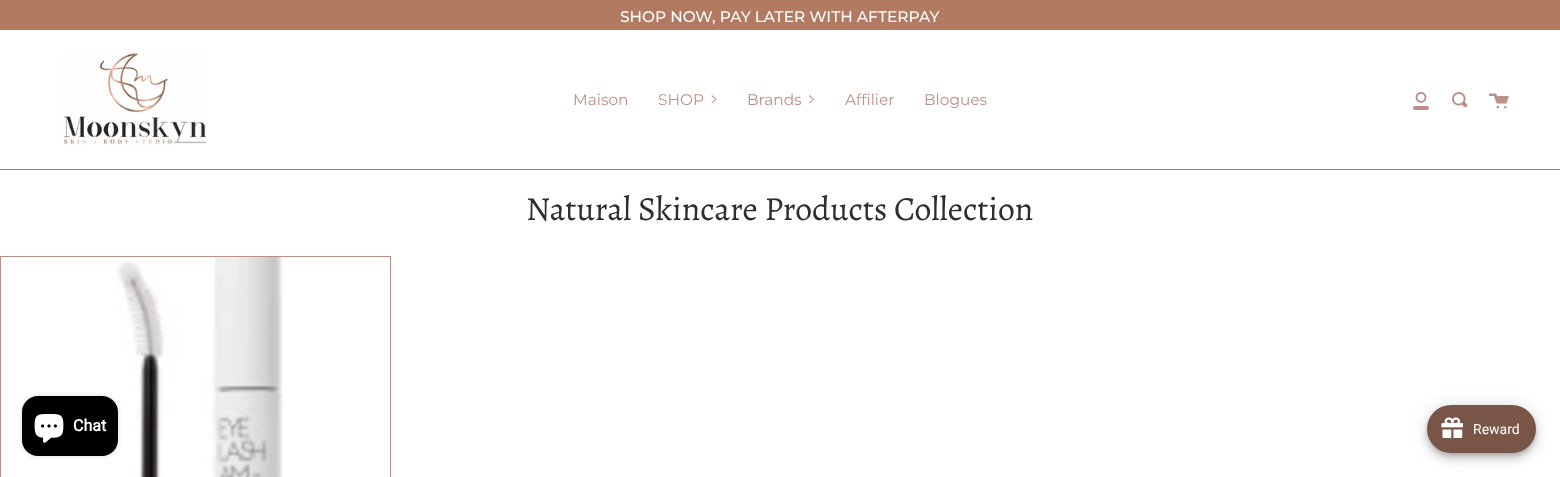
<!DOCTYPE html>
<meta charset="utf-8">
<style>body { margin: 0 } canvas { display: block }</style>
<canvas id="canvas" width="1560" height="477"></canvas>
<script type="module">
  const canvas = document.getElementById("canvas");
  const g = canvas.getContext("2d");
  g.miterLimit = 4;
  g.fontKerning = "normal";
  function drawText(s, x, y, [font, color]) {
    g.font = font;
    g.fillStyle = color;
    g.fillText(s, x, y);
  }
  function fillBox(x, y, w, h, color) {
    g.fillStyle = color;
    g.fillRect(x, y, w, h);
  }
  function fillRounded(x, y, w, h, r, color) {
    g.fillStyle = color;
    g.beginPath();
    g.roundRect(x, y, w, h, r);
    g.fill();
  }
  async function drawPicture(src, x, y, w, h) {
    const img = new Image();
    img.src = src;
    await img.decode();
    g.drawImage(img, x, y, w, h);
  }

  const s1 = ["500 15.4px Montserrat", "#FFFFFF"];
  const s2 = ["100 15.4px Montserrat", "#BB9088"];
  const s3 = ["33.75px Alegreya", "#2E2E2E"];
  const s4 = ["bold 16px Roboto", "#FFFFFF"];
  const s5 = ["14px Roboto", "#FFFFFF"];

  fillBox(0, 0, 1560, 477, "#FFFFFF");
  fillBox(0, 0, 1560, 30, "#B27A61");
  drawText("SHOP NOW, PAY LATER WITH AFTERPAY", 620, 22, s1);
  fillBox(0, 169, 1560, 1, "#B27A61");
  await drawPicture("pic1.png", 63, 51, 144, 94);
  drawText("Maison", 573, 105, s2);
  drawText("SHOP", 658, 105, s2);
  g.beginPath();
  g.moveTo(715.5, 100);
  g.lineTo(711.5, 96);
  g.lineTo(712, 95);
  g.lineTo(716.5, 99.5);
  g.closePath();
  g.fill();
  g.beginPath();
  g.moveTo(712, 103.5);
  g.lineTo(711.5, 103);
  g.lineTo(715.5, 99);
  g.lineTo(716.5, 99.5);
  g.closePath();
  g.fill();
  drawText("Brands", 747, 105, s2);
  g.beginPath();
  g.moveTo(813.5, 100);
  g.lineTo(809, 96);
  g.lineTo(810, 95);
  g.lineTo(814, 99.5);
  g.closePath();
  g.fill();
  g.beginPath();
  g.moveTo(810, 103.5);
  g.lineTo(809, 103);
  g.lineTo(813.5, 99);
  g.lineTo(814, 99.5);
  g.closePath();
  g.fill();
  drawText("Affilier", 845, 105, s2);
  drawText("Blogues", 924, 105, s2);
  await drawPicture("pic2.png", 1413, 92, 16, 18);
  await drawPicture("pic3.png", 1452, 92, 15, 15);
  await drawPicture("pic4.png", 1489, 93, 20, 16);
  drawText("Natural Skincare Products Collection", 526, 220, s3);
  fillBox(1, 256, 390, 1, "#BB9088");
  fillBox(390, 256, 1, 221, "#BB9088");
  fillBox(0, 256, 1, 221, "#BB9088");
  await drawPicture("pic5.png", 117, 257, 168, 220);
  g.fillStyle = "rgba(0, 0, 0, 0.15)";
  g.filter = "blur(2.5px)";
  g.beginPath();
  g.roundRect(22, 396, 96, 60, 16);
  g.fill();
  g.filter = "none";
  fillRounded(22, 396, 96, 60, 16, "#000000");
  await drawPicture("pic6.png", 34, 414, 30, 29);
  drawText("Chat", 73, 431, s4);
  g.fillStyle = "rgba(0, 0, 0, 0.12)";
  g.filter = "blur(9px)";
  g.beginPath();
  g.roundRect(1427, 406, 109, 48, 24);
  g.fill();
  g.filter = "none";
  g.fillStyle = "rgba(0, 0, 0, 0.14)";
  g.filter = "blur(5px)";
  g.beginPath();
  g.roundRect(1427, 411, 109, 48, 24);
  g.fill();
  g.filter = "none";
  g.fillStyle = "rgba(0, 0, 0, 0.2)";
  g.filter = "blur(2.5px)";
  g.beginPath();
  g.roundRect(1428, 409, 107, 46, 23);
  g.fill();
  g.filter = "none";
  fillRounded(1427, 405, 109, 48, 24, "#795548");
  await drawPicture("pic7.png", 1441, 417, 22, 21);
  drawText("Reward", 1473, 434, s5);
</script>
